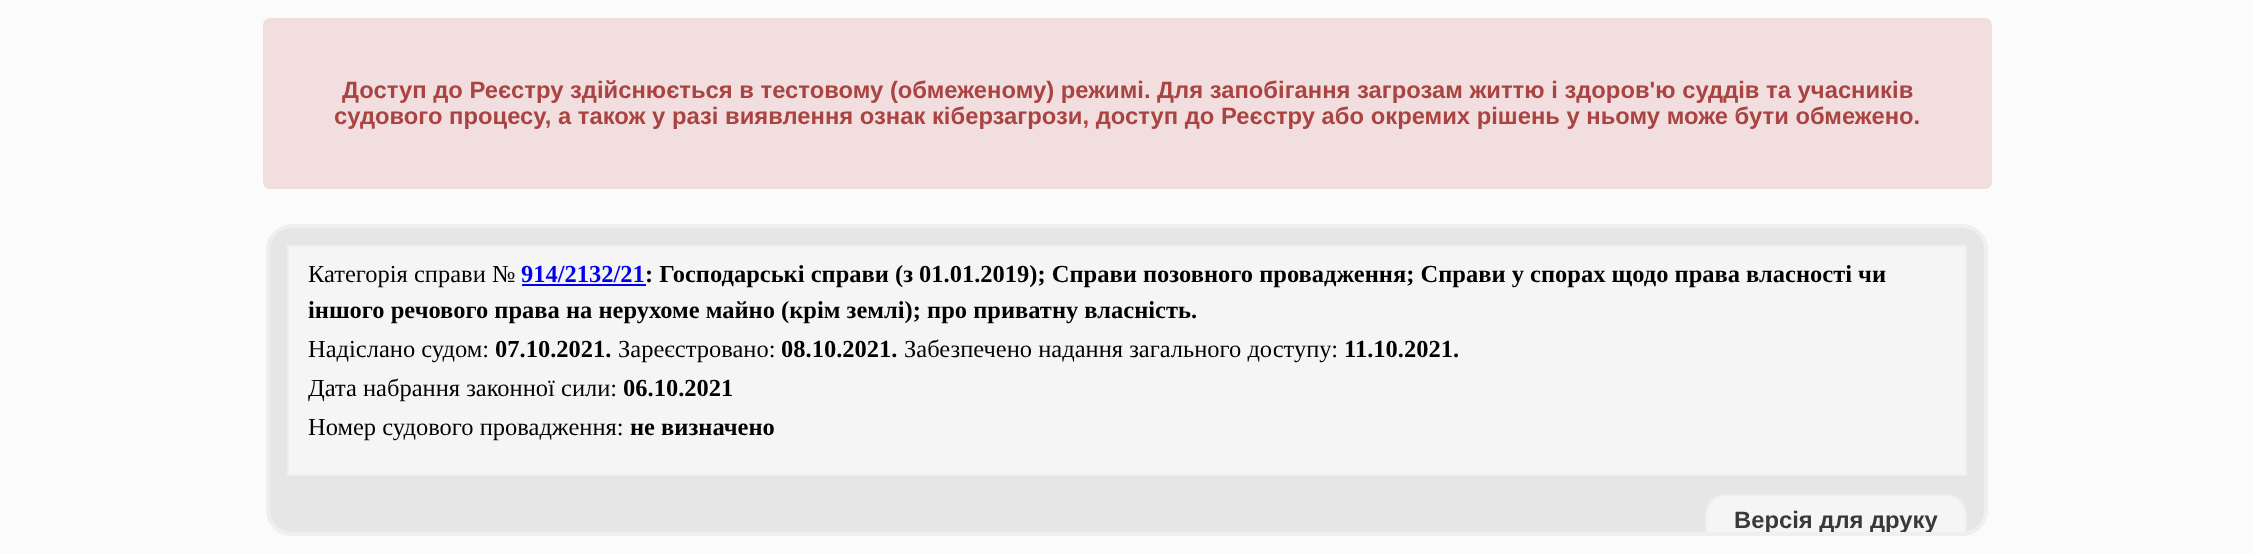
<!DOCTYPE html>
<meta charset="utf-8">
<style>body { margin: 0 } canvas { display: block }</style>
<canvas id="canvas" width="2253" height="554"></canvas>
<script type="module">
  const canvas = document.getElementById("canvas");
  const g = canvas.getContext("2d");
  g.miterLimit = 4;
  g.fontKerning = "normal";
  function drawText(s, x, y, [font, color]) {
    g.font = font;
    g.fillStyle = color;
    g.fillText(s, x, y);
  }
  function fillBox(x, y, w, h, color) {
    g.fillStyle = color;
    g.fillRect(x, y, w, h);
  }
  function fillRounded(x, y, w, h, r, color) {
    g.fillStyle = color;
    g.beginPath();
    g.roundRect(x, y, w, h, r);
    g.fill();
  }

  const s1 = ["bold 23.8px Liberation Sans", "#A94442"];
  const s2 = ["24.5px Liberation Serif", "#000000"];
  const s3 = ["bold 24.5px Liberation Serif", "#0000EE"];
  const s4 = ["bold 24.5px Liberation Serif", "#000000"];
  const s5 = ["bold 23.8px Liberation Sans", "#393939"];

  fillBox(0, 0, 2253, 554, "#FBFBFB");
  fillRounded(263, 18, 1729, 171, 7, "#F2DEDE");
  drawText("Доступ до Реєстру здійснюється в тестовому (обмеженому) режимі. Для запобігання загрозам життю і здоров'ю суддів та учасників", 342, 98, s1);
  drawText("судового процесу, а також у разі виявлення ознак кіберзагрози, доступ до Реєстру або окремих рішень у ньому може бути обмежено.", 334, 124, s1);
  g.fillStyle = "#E6E6E6";
  g.beginPath();
  g.roundRect(268, 226, 1718, 308, 24);
  g.fill();
  g.strokeStyle = "#EFEFEF";
  g.lineWidth = 4;
  g.stroke();
  g.fillStyle = "#F5F5F5";
  g.beginPath();
  g.rect(288, 246, 1678, 229);
  g.fill();
  g.lineWidth = 2;
  g.stroke();
  drawText("Категорія справи №", 308, 282, s2);
  drawText("914/2132/21", 521, 282, s3);
  drawText(": Господарські справи (з 01.01.2019); Справи позовного провадження; Справи у спорах щодо права власності чи", 645, 282, s4);
  fillBox(522, 284, 124, 2, "#0000EE");
  drawText("іншого речового права на нерухоме майно (крім землі); про приватну власність.", 308, 318, s4);
  drawText("Надіслано судом:", 308, 357, s2);
  drawText("07.10.2021.", 495, 357, s4);
  drawText("Зареєстровано:", 618, 357, s2);
  drawText("08.10.2021.", 781, 357, s4);
  drawText("Забезпечено надання загального доступу:", 904, 357, s2);
  drawText("11.10.2021.", 1344, 357, s4);
  drawText("Дата набрання законної сили:", 308, 396, s2);
  drawText("06.10.2021", 623, 396, s4);
  drawText("Номер судового провадження:", 308, 435, s2);
  drawText("не визначено", 630, 435, s4);
  g.save();
  g.beginPath();
  g.roundRect(270, 228, 1715, 304, 23);
  g.clip();
  fillRounded(1705, 494, 262, 52, 21, "#F5F5F5");
  g.restore();
  g.fillStyle = "#EFEFEF";
  g.beginPath();
  g.moveTo(1726, 494);
  g.bezierCurveTo(1714, 494, 1705, 503, 1705, 515);
  g.lineTo(1705, 525);
  g.bezierCurveTo(1705, 527, 1705, 530, 1706, 532);
  g.lineTo(1708, 532);
  g.bezierCurveTo(1707, 530, 1707, 527, 1707, 525);
  g.lineTo(1707, 515);
  g.bezierCurveTo(1707, 505, 1716, 496, 1726, 496);
  g.lineTo(1946, 496);
  g.bezierCurveTo(1956, 496, 1965, 505, 1965, 515);
  g.lineTo(1965, 525);
  g.bezierCurveTo(1965, 527, 1965, 530, 1964, 532);
  g.lineTo(1966, 532);
  g.bezierCurveTo(1967, 530, 1967, 527, 1967, 525);
  g.lineTo(1967, 515);
  g.bezierCurveTo(1967, 503, 1958, 494, 1946, 494);
  g.closePath();
  g.fill();
  g.save();
  g.beginPath();
  g.roundRect(270, 228, 1715, 304, 23);
  g.clip();
  drawText("Версія для друку", 1734, 528, s5);
  g.restore();
</script>
